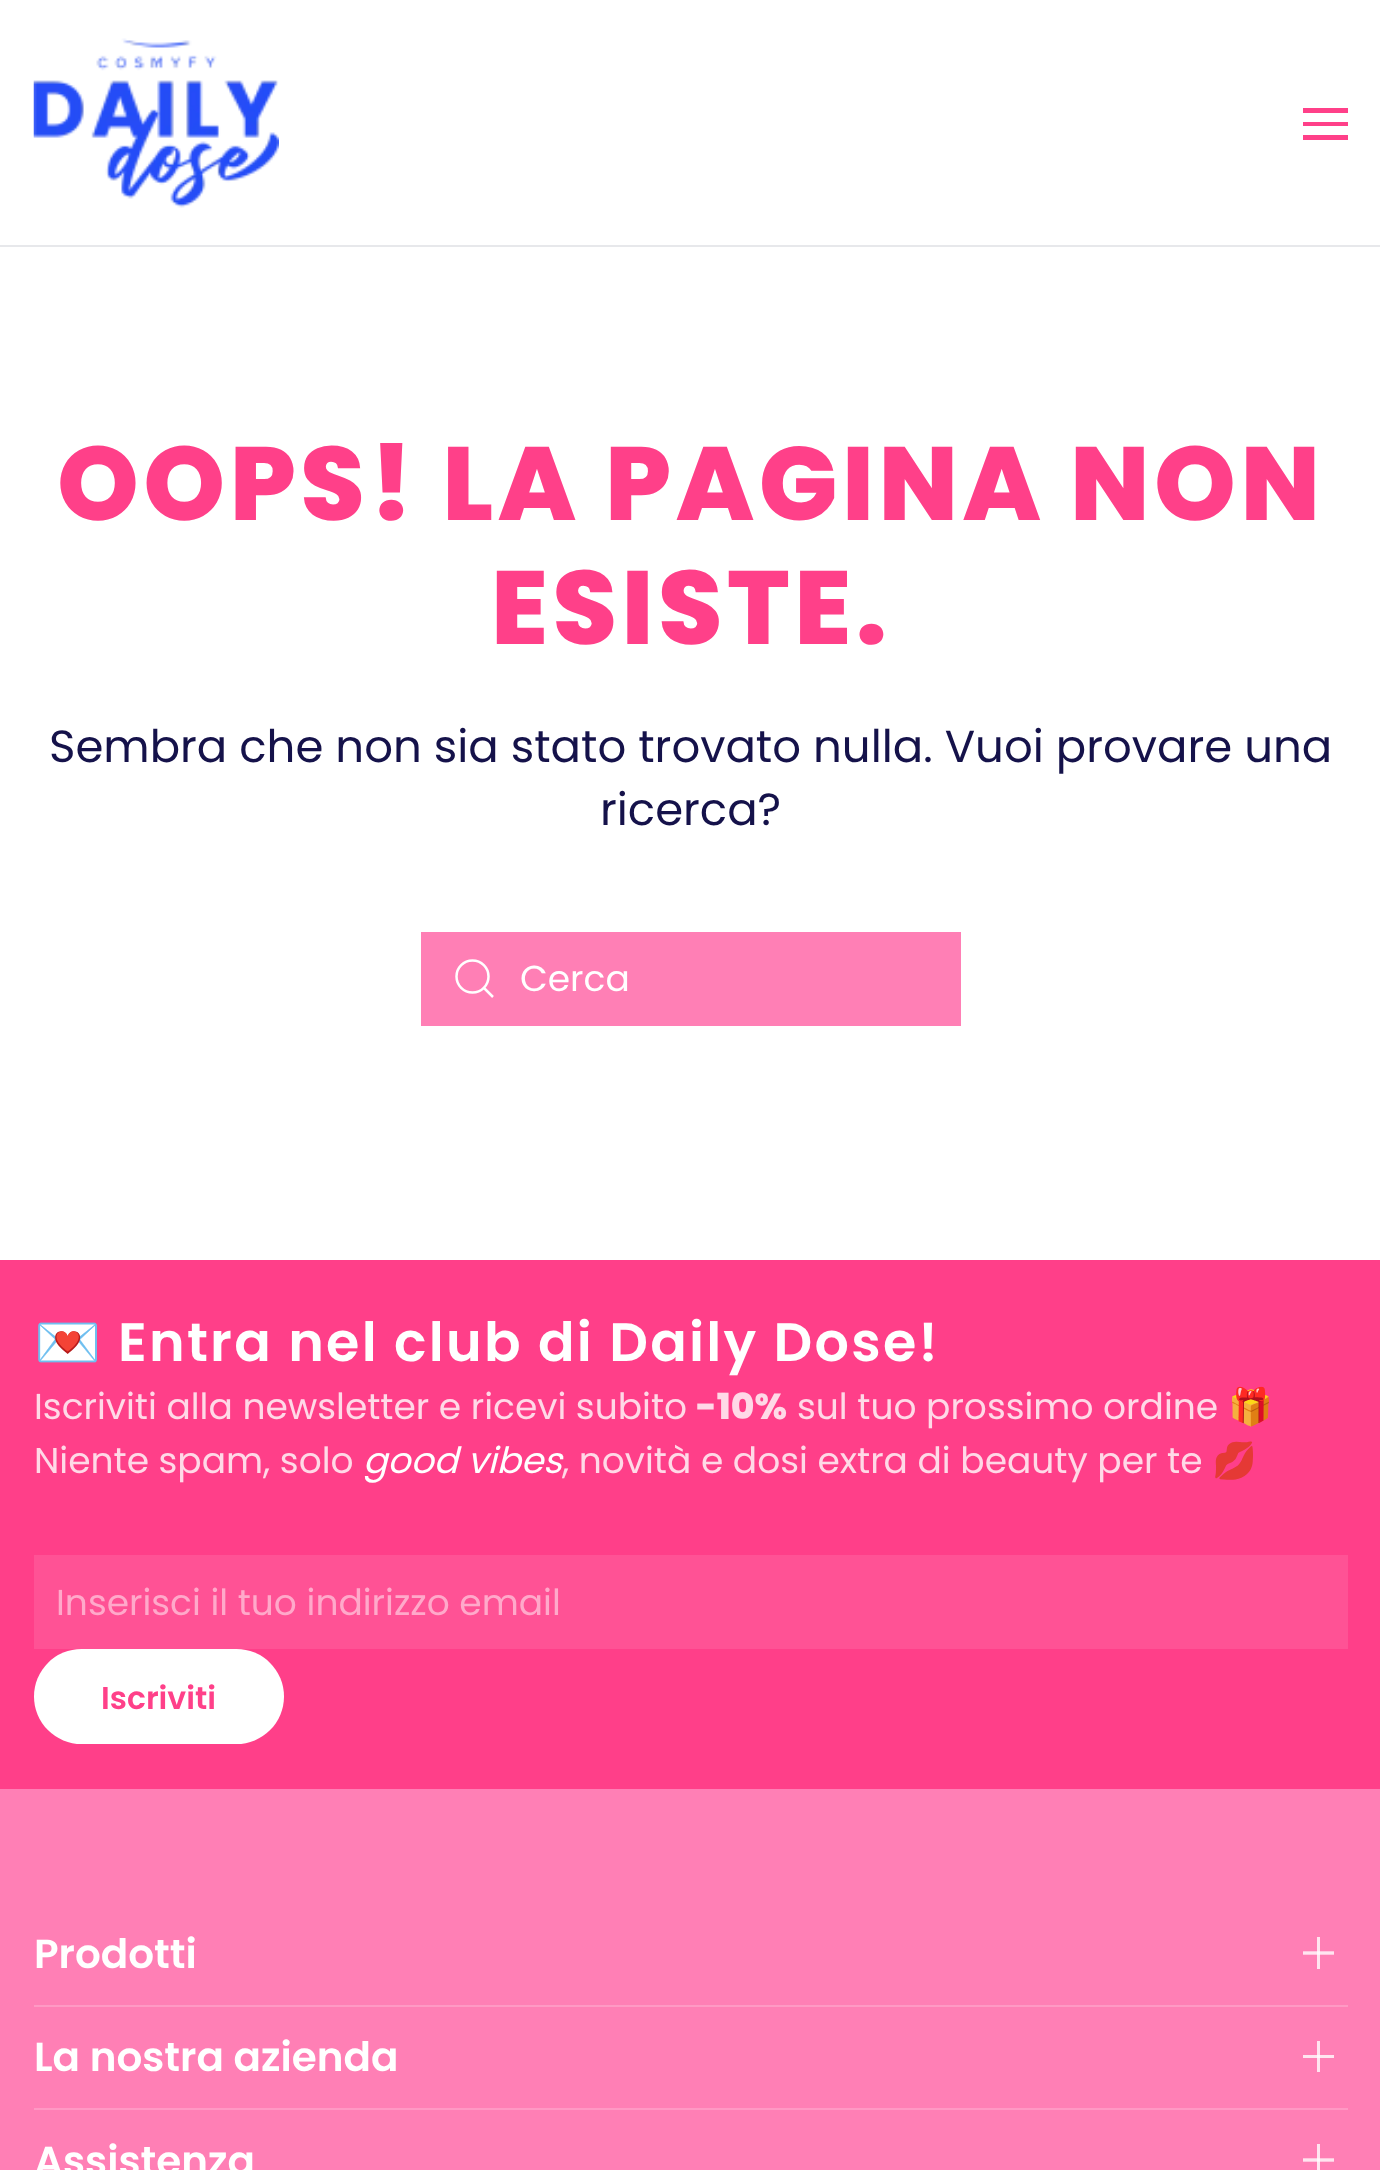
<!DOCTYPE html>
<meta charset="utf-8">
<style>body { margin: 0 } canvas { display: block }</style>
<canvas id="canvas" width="1380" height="2170"></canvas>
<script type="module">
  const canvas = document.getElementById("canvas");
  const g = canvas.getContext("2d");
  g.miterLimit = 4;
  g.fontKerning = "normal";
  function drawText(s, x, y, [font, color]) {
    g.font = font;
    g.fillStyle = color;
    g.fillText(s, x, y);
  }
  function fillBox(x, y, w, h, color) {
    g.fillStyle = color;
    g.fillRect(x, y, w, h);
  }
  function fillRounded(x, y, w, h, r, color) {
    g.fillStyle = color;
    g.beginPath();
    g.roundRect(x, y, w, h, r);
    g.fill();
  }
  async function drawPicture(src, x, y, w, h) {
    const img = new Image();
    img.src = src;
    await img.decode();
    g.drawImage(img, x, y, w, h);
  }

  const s1 = ["800 104px Poppins", "#FF4089"];
  const s2 = ["45px Poppins", "#15124A"];
  const s3 = ["36px Poppins", "#FFFFFF"];
  const s4 = ["bold 54px Noto Color Emoji", "#FFFFFF"];
  const s5 = ["600 54px Poppins", "#FFFFFF"];
  const s6 = ["36px Poppins", "#FFD9E7"];
  const s7 = ["800 36px Poppins", "#FFD9E7"];
  const s8 = ["36px Noto Color Emoji", "#FFD9E7"];
  const s9 = ["italic 36px Poppins", "#FFFFFF"];
  const s10 = ["36px Poppins", "#FFA9CA"];
  const s11 = ["600 31.5px Poppins", "#FF4089"];
  const s12 = ["600 40.5px Poppins", "#FFFFFF"];

  fillBox(0, 0, 1380, 2170, "#FFFFFF");
  fillBox(0, 245, 1380, 2, "#E7E8EB");
  await drawPicture("pic1.png", 33, 38, 246, 170);
  fillBox(1303, 108, 45, 5, "#FF4089");
  fillBox(1303, 122, 45, 4, "#FF4089");
  fillBox(1303, 135, 45, 5, "#FF4089");
  g.letterSpacing = "4.5px";
  drawText("OOPS! LA PAGINA NON", 57, 520, s1);
  drawText("ESISTE.", 491, 644, s1);
  g.letterSpacing = "0px";
  drawText("Sembra che non sia stato trovato nulla. Vuoi provare una", 49, 762, s2);
  drawText("ricerca?", 600, 825, s2);
  fillBox(421, 932, 540, 94, "#FF7FB5");
  g.beginPath();
  g.arc(472.5, 976.5, 16, 0, Math.PI * 2);
  g.strokeStyle = "#FFFFFF";
  g.lineWidth = 2.5;
  g.stroke();
  g.beginPath();
  g.moveTo(484, 988);
  g.lineTo(493, 997);
  g.closePath();
  g.stroke();
  drawText("Cerca", 520, 991, s3);
  fillBox(0, 1260, 1380, 529, "#FF3F89");
  g.letterSpacing = "2.25px";
  drawText("💌", 34, 1361, s4);
  drawText("Entra nel club di Daily Dose!", 118, 1361, s5);
  g.letterSpacing = "0px";
  drawText("Iscriviti alla newsletter e ricevi subito", 34, 1419, s6);
  drawText("-10%", 696, 1419, s7);
  drawText("sul tuo prossimo ordine", 797, 1419, s6);
  drawText("🎁", 1228, 1419, s8);
  drawText("Niente spam, solo", 34, 1473, s6);
  drawText("good vibes", 363, 1473, s9);
  drawText(", novità e dosi extra di beauty per te", 562, 1473, s6);
  drawText("💋", 1212, 1473, s8);
  fillBox(34, 1555, 1314, 94, "#FF5295");
  drawText("Inserisci il tuo indirizzo email", 56, 1615, s10);
  fillRounded(34, 1649, 250, 95, 47.5, "#FFFFFF");
  drawText("Iscriviti", 101, 1709, s11);
  fillBox(0, 1789, 1380, 381, "#FF7FB5");
  fillBox(1317, 2041, 3, 31, "#FFE5F0");
  drawText("Prodotti", 34, 1968, s12);
  g.beginPath();
  g.moveTo(1303, 1953);
  g.lineTo(1334, 1953);
  g.strokeStyle = "#FFE5F0";
  g.lineWidth = 3.4;
  g.stroke();
  fillBox(1317, 1937, 3, 32, "rgba(255, 255, 255, 0.8)");
  fillBox(34, 2005, 1314, 2, "#FF99C4");
  drawText("La nostra azienda", 34, 2071, s12);
  fillBox(1303, 2055, 31, 3, "#FFE5F0");
  fillBox(1317, 2055, 3, 3, "#FFFAFC");
  fillBox(34, 2108, 1314, 2, "#FF99C4");
  drawText("Assistenza", 34, 2175, s12);
  g.beginPath();
  g.moveTo(1303, 2160);
  g.lineTo(1334, 2160);
  g.stroke();
  fillBox(1317, 2144, 3, 26, "rgba(255, 255, 255, 0.8)");
</script>
